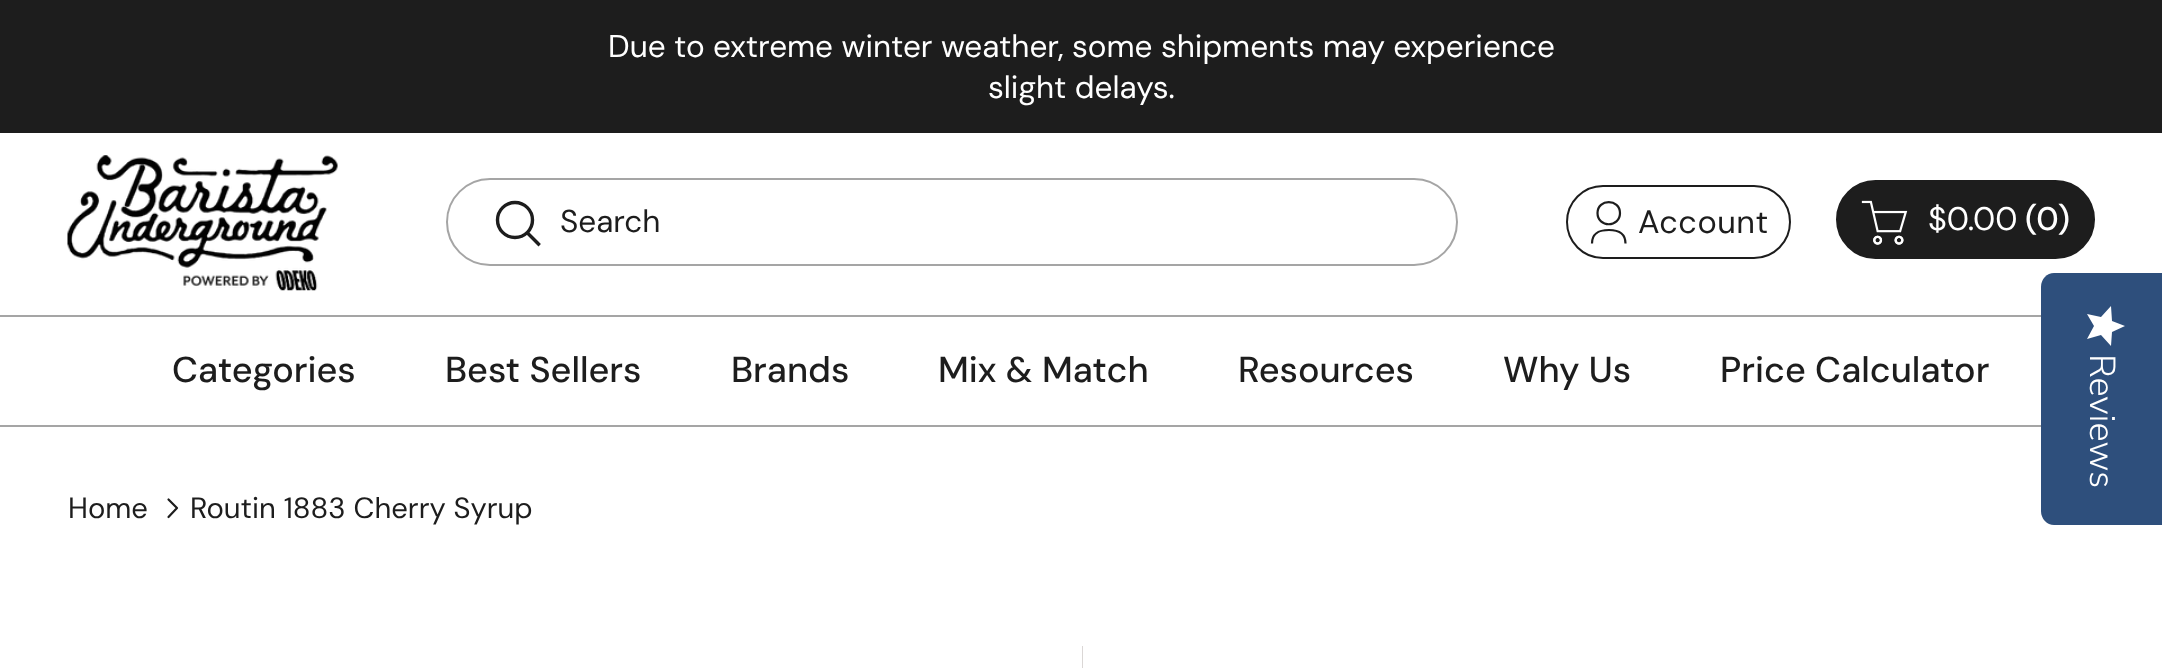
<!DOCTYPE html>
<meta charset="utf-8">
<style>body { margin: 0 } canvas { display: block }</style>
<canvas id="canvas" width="2162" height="668"></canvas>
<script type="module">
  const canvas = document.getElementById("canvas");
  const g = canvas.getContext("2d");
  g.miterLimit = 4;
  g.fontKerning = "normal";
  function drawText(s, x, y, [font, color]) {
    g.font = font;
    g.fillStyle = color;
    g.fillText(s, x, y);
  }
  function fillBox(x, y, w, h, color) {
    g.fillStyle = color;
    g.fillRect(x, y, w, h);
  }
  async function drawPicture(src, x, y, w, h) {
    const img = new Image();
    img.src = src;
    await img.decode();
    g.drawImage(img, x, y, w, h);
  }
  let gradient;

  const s1 = ["31.5px DM Sans", "#FFFFFF"];
  const s2 = ["31.5px DM Sans", "#1D1D1D"];
  const s3 = ["32.5px DM Sans", "#1D1D1D"];
  const s4 = ["32.5px DM Sans", "#FFFFFF"];
  const s5 = ["500 32.5px DM Sans", "#FFFFFF"];
  const s6 = ["500 36px DM Sans", "#1D1D1D"];
  const s7 = ["29.25px DM Sans", "#1D1D1D"];

  fillBox(0, 0, 2162, 668, "#FFFFFF");
  fillBox(0, 0, 2162, 133, "#1D1D1D");
  drawText("Due to extreme winter weather, some shipments may experience", 608, 57, s1);
  drawText("slight delays.", 988, 98, s1);
  fillBox(0, 315, 2041, 2, "#A5A5A5");
  await drawPicture("pic1.png", 67, 155, 271, 136);
  g.beginPath();
  g.roundRect(447, 179, 1010, 86, 43);
  g.strokeStyle = "#A5A5A5";
  g.lineWidth = 2;
  g.stroke();
  g.beginPath();
  g.arc(515, 220, 17.5, 0, Math.PI * 2);
  g.strokeStyle = "#1D1D1D";
  g.lineWidth = 3.4;
  g.stroke();
  g.beginPath();
  g.moveTo(528.5, 234);
  g.lineTo(538.5, 244);
  g.lineCap = "square";
  g.stroke();
  drawText("Search", 560, 232, s2);
  g.beginPath();
  g.roundRect(1567, 186, 223, 72, 36);
  g.lineWidth = 2;
  g.stroke();
  g.beginPath();
  g.moveTo(1592, 243.5);
  g.bezierCurveTo(1592, 231, 1602, 230, 1609, 230);
  g.bezierCurveTo(1614.5, 230, 1625.5, 231, 1625.5, 243.5);
  g.moveTo(1620, 213);
  g.bezierCurveTo(1620, 228, 1597.5, 228, 1597.5, 213);
  g.bezierCurveTo(1597.5, 198.5, 1620, 198.5, 1620, 213);
  g.closePath();
  g.lineWidth = 2.2;
  g.lineCap = "butt";
  g.stroke();
  g.letterSpacing = "0.5px";
  drawText("Account", 1638, 233, s3);
  g.beginPath();
  g.roundRect(1837, 181, 257, 77, 38.5);
  g.fill();
  g.lineWidth = 2;
  g.stroke();
  await drawPicture("pic2.png", 1861, 200, 47, 45);
  g.letterSpacing = "0px";
  drawText("$0.00", 1928, 230, s4);
  drawText("(0)", 2025, 230, s5);
  fillBox(0, 425, 2041, 2, "#A5A5A5");
  drawText("Categories", 172, 382, s6);
  drawText("Best Sellers", 445, 382, s6);
  drawText("Brands", 731, 382, s6);
  drawText("Mix & Match", 938, 382, s6);
  drawText("Resources", 1238, 382, s6);
  drawText("Why Us", 1503, 382, s6);
  drawText("Price Calculator", 1720, 382, s6);
  g.fillStyle = "#2E4F7C";
  g.beginPath();
  g.moveTo(2162, 273);
  g.lineTo(2162, 525);
  g.lineTo(2054, 525);
  g.bezierCurveTo(2047, 525, 2041, 519, 2041, 511);
  g.lineTo(2041, 287);
  g.bezierCurveTo(2041, 279, 2047, 273, 2054, 273);
  g.closePath();
  g.fill();
  gradient = g.createLinearGradient(2125, 306, 2125, 347);
  gradient.addColorStop(1, "#FFFFFF");
  gradient.addColorStop(1, "#EAEAEA");
  g.fillStyle = gradient;
  g.beginPath();
  g.moveTo(2094, 326);
  g.lineTo(2087, 339);
  g.lineTo(2101, 335);
  g.lineTo(2111, 346);
  g.lineTo(2112, 332);
  g.lineTo(2125, 326);
  g.lineTo(2112, 321);
  g.lineTo(2111, 306);
  g.lineTo(2101, 317);
  g.lineTo(2087, 314);
  g.closePath();
  g.fill();
  g.font = "300 36px Nunito Sans";
  g.fillStyle = "#FFFFFF";
  g.save();
  g.translate(2090, 354);
  g.rotate(90 * Math.PI / 180);
  g.fillText("Reviews", 0, 0);
  g.restore();
  drawText("Home", 68, 518, s7);
  g.beginPath();
  g.moveTo(168.5, 517);
  g.lineTo(177, 508);
  g.lineTo(168.5, 499.5);
  g.lineWidth = 2.2;
  g.lineCap = "round";
  g.lineJoin = "round";
  g.stroke();
  drawText("Routin 1883 Cherry Syrup", 190, 518, s7);
  await drawPicture("pic3.png", 1082, 646, 1, 22);
</script>
